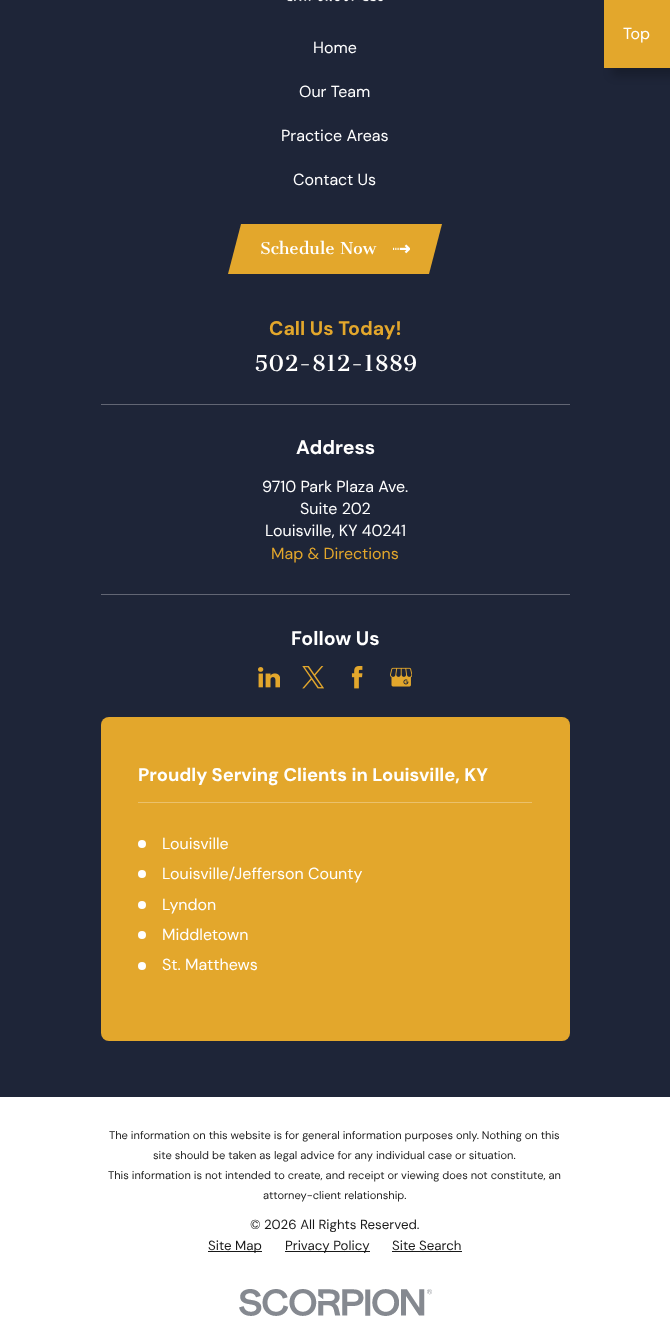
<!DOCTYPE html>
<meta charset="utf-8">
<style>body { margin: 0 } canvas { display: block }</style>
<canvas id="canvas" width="670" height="1344"></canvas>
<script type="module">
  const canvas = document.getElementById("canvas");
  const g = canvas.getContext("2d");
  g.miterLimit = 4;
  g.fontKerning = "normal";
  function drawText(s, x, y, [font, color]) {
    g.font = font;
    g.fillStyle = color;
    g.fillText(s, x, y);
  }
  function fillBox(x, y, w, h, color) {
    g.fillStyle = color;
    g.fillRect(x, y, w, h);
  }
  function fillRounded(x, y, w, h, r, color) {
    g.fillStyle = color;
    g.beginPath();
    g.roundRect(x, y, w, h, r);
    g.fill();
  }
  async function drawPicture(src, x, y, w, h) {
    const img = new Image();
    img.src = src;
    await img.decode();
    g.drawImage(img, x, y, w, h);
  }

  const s1 = ["16px DM Sans", "#FFFFFF"];
  const s2 = ["16px Cantata One", "#FFFFFF"];
  const s3 = ["bold 19.5px DM Sans", "#E3A72C"];
  const s4 = ["21.5px Cantata One", "#FFFFFF"];
  const s5 = ["bold 19.5px DM Sans", "#FFFFFF"];
  const s6 = ["16px DM Sans", "#E3A72C"];
  const s7 = ["bold 18.4px DM Sans", "#FFFFFF"];
  const s8 = ["11.1px DM Sans", "#191919"];
  const s9 = ["13.3px DM Sans", "#191919"];

  fillBox(0, 0, 670, 1344, "#FFFFFF");
  fillBox(0, 0, 670, 1097, "#1E2538");
  g.fillStyle = "rgba(0, 0, 0, 0.2)";
  g.filter = "blur(4px)";
  g.beginPath();
  g.rect(612, 8, 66, 68);
  g.fill();
  g.filter = "none";
  fillBox(604, 0, 66, 68, "#E3A72C");
  drawText("Top", 623, 39, s1);
  await drawPicture("pic1.png", 287, 0, 96, 2);
  drawText("Home", 313, 53, s1);
  drawText("Our Team", 299, 97, s1);
  drawText("Practice Areas", 281, 141, s1);
  drawText("Contact Us", 293, 185, s1);
  g.fillStyle = "#E3A72C";
  g.beginPath();
  g.moveTo(241, 224);
  g.lineTo(442, 224);
  g.lineTo(429, 274);
  g.lineTo(228, 274);
  g.closePath();
  g.fill();
  drawText("Schedule Now", 260, 254, s2);
  await drawPicture("pic2.png", 393, 244, 17, 10);
  drawText("Call Us Today!", 269, 335, s3);
  drawText("502-812-1889", 254, 371, s4);
  fillBox(101, 404, 469, 1, "#626674");
  drawText("Address", 296, 454, s5);
  drawText("9710 Park Plaza Ave.", 262, 492, s1);
  drawText("Suite 202", 300, 514, s1);
  drawText("Louisville, KY 40241", 265, 536, s1);
  drawText("Map & Directions", 271, 559, s6);
  fillBox(101, 594, 469, 1, "#626674");
  drawText("Follow Us", 291, 645, s5);
  await drawPicture("pic3.png", 258, 667, 22, 21);
  await drawPicture("pic4.png", 302, 666, 22, 23);
  await drawPicture("pic5.png", 351, 666, 12, 23);
  await drawPicture("pic6.png", 390, 667, 22, 20);
  fillRounded(101, 717, 469, 324, 8, "#E3A72C");
  fillBox(138, 802, 394, 1, "#EBC16B");
  drawText("Proudly Serving Clients in Louisville, KY", 138, 781, s7);
  g.beginPath();
  g.arc(142, 844, 4, 0, Math.PI * 2);
  g.fill();
  drawText("Louisville", 162, 849, s1);
  g.beginPath();
  g.arc(142, 874, 4, 0, Math.PI * 2);
  g.fill();
  drawText("Louisville/Jefferson County", 162, 879, s1);
  g.beginPath();
  g.arc(142, 905, 4, 0, Math.PI * 2);
  g.fill();
  drawText("Lyndon", 162, 910, s1);
  g.beginPath();
  g.arc(142, 935, 4, 0, Math.PI * 2);
  g.fill();
  drawText("Middletown", 162, 940, s1);
  g.beginPath();
  g.arc(142, 966, 4, 0, Math.PI * 2);
  g.fill();
  drawText("St. Matthews", 162, 970, s1);
  drawText("The information on this website is for general information purposes only. Nothing on this", 109, 1139, s8);
  drawText("site should be taken as legal advice for any individual case or situation.", 153, 1159, s8);
  drawText("This information is not intended to create, and receipt or viewing does not constitute, an", 108, 1179, s8);
  drawText("attorney-client relationship.", 263, 1199, s8);
  drawText("© 2026 All Rights Reserved.", 250, 1229, s9);
  fillBox(208, 1251, 54, 1, "#191919");
  drawText("Site Map", 208, 1250, s9);
  fillBox(285, 1251, 85, 1, "#191919");
  drawText("Privacy Policy", 285, 1250, s9);
  drawText("Site Search", 392, 1250, s9);
  fillBox(392, 1251, 70, 1, "#191919");
  await drawPicture("pic7.png", 239, 1289, 193, 27);
</script>
